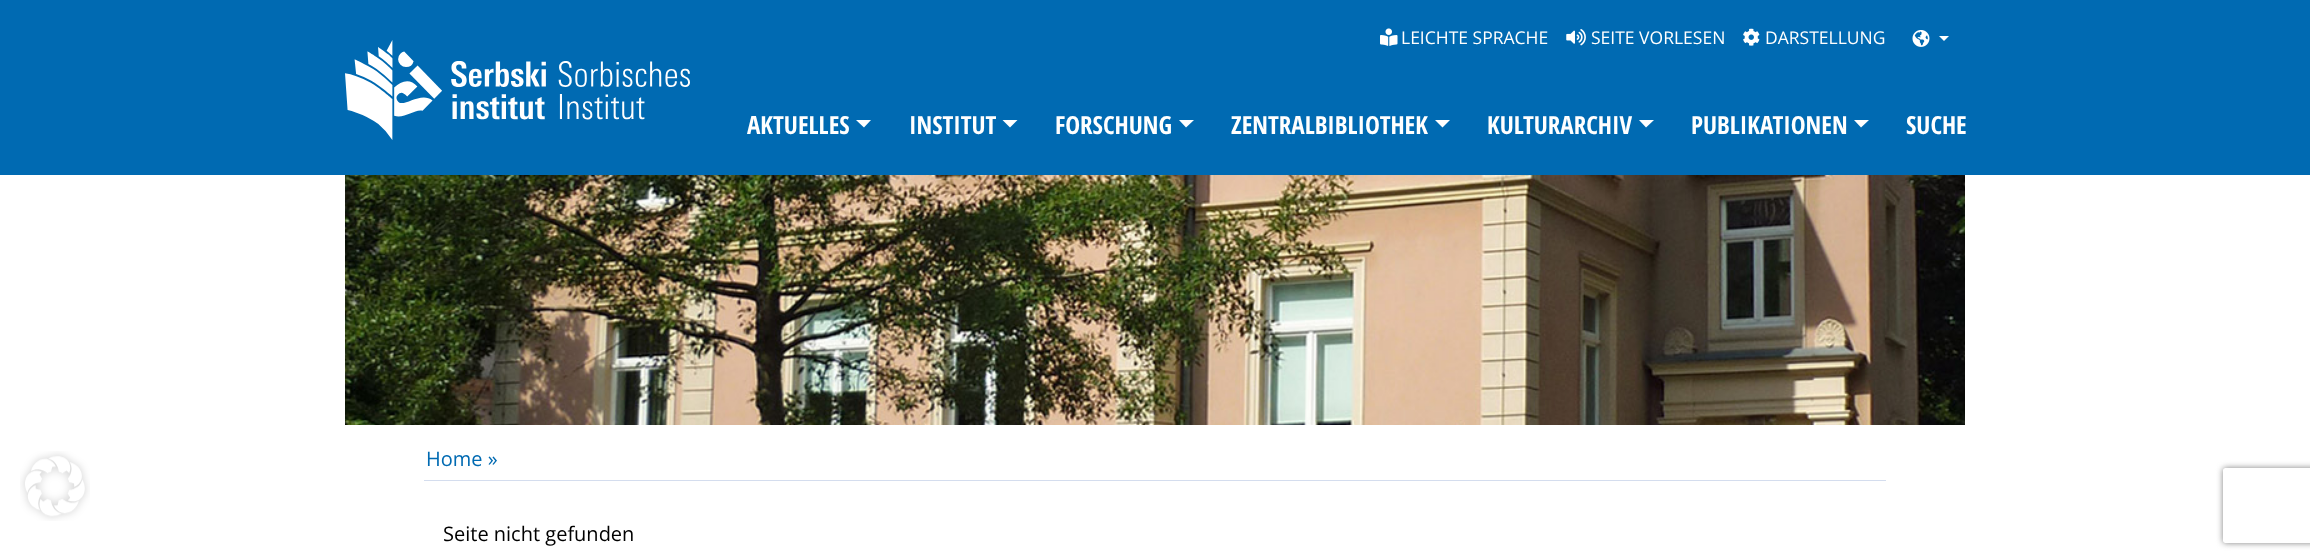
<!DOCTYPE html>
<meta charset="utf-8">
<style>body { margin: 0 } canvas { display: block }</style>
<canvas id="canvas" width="2310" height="559"></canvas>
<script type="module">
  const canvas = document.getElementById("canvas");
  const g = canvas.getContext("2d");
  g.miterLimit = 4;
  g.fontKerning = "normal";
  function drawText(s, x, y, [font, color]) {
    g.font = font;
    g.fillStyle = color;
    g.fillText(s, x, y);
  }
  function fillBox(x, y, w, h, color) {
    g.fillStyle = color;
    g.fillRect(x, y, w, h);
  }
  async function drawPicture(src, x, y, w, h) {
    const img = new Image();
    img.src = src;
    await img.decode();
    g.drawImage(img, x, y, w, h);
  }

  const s1 = ["17.5px Open Sans", "#FFFFFF"];
  const s2 = ["bold 25px Open Sans Condensed", "#FFFFFF"];
  const s3 = ["20px Open Sans", "#006AB2"];
  const s4 = ["20px Open Sans", "#000000"];

  fillBox(0, 0, 2310, 559, "#FFFFFF");
  fillBox(0, 0, 2310, 175, "#006AB2");
  await drawPicture("pic1.png", 1380, 28, 18, 18);
  drawText("LEICHTE SPRACHE", 1401, 44, s1);
  await drawPicture("pic2.png", 1566, 29, 20, 17);
  drawText("SEITE VORLESEN", 1591, 44, s1);
  await drawPicture("pic3.png", 1743, 28, 17, 18);
  drawText("DARSTELLUNG", 1765, 44, s1);
  await drawPicture("pic4.png", 1912, 30, 18, 17);
  g.beginPath();
  g.moveTo(1939, 36);
  g.lineTo(1949, 36);
  g.lineTo(1944, 41);
  g.closePath();
  g.fill();
  await drawPicture("pic5.png", 345, 40, 345, 100);
  drawText("AKTUELLES", 747, 134, s2);
  g.beginPath();
  g.moveTo(856, 120);
  g.lineTo(871, 120);
  g.lineTo(864, 127.5);
  g.closePath();
  g.fill();
  drawText("INSTITUT", 909, 134, s2);
  g.beginPath();
  g.moveTo(1002.5, 120);
  g.lineTo(1017.5, 120);
  g.lineTo(1010, 127.5);
  g.closePath();
  g.fill();
  drawText("FORSCHUNG", 1055, 134, s2);
  g.beginPath();
  g.moveTo(1179, 120);
  g.lineTo(1194, 120);
  g.lineTo(1186, 127.5);
  g.closePath();
  g.fill();
  drawText("ZENTRALBIBLIOTHEK", 1231, 134, s2);
  g.beginPath();
  g.moveTo(1435, 120);
  g.lineTo(1450, 120);
  g.lineTo(1442.5, 127.5);
  g.closePath();
  g.fill();
  drawText("KULTURARCHIV", 1487, 134, s2);
  g.beginPath();
  g.moveTo(1639, 120);
  g.lineTo(1654, 120);
  g.lineTo(1646, 127.5);
  g.closePath();
  g.fill();
  drawText("PUBLIKATIONEN", 1691, 134, s2);
  g.beginPath();
  g.moveTo(1854, 120);
  g.lineTo(1869, 120);
  g.lineTo(1861, 127.5);
  g.closePath();
  g.fill();
  drawText("SUCHE", 1906, 134, s2);
  await drawPicture("pic6.png", 20, 451, 70, 70);
  await drawPicture("pic7.png", 345, 175, 1620, 250);
  drawText("Home »", 426, 466, s3);
  fillBox(424, 480, 1462, 1, "#D4DDEE");
  drawText("Seite nicht gefunden", 443, 541, s4);
  g.save();
  g.beginPath();
  g.moveTo(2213, 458);
  g.lineTo(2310, 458);
  g.lineTo(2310, 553);
  g.lineTo(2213, 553);
  g.closePath();
  g.moveTo(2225.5, 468);
  g.lineTo(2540.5, 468);
  g.bezierCurveTo(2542, 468, 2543, 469, 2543, 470.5);
  g.lineTo(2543, 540.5);
  g.bezierCurveTo(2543, 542, 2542, 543, 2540.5, 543);
  g.lineTo(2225.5, 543);
  g.bezierCurveTo(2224, 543, 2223, 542, 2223, 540.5);
  g.lineTo(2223, 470.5);
  g.bezierCurveTo(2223, 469, 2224, 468, 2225.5, 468);
  g.closePath();
  g.clip("evenodd");
  g.fillStyle = "#808080";
  g.filter = "blur(3px)";
  g.beginPath();
  g.roundRect(2223, 468, 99, 75, 2.5);
  g.fill();
  g.filter = "none";
  g.restore();
</script>
